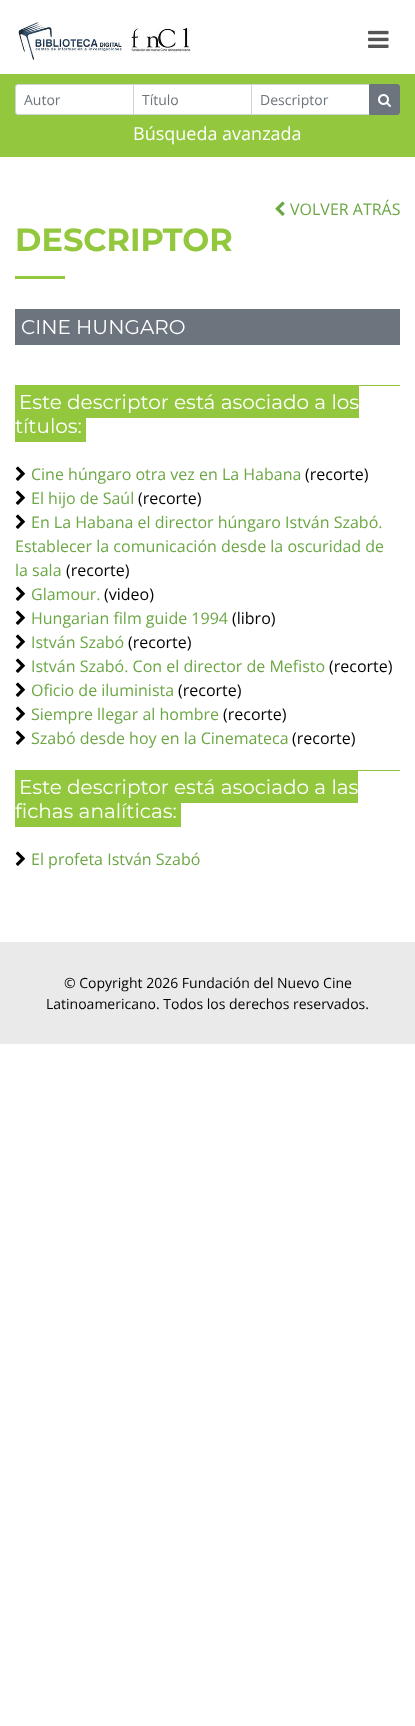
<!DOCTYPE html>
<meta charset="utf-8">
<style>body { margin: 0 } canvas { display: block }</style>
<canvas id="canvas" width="415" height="1726"></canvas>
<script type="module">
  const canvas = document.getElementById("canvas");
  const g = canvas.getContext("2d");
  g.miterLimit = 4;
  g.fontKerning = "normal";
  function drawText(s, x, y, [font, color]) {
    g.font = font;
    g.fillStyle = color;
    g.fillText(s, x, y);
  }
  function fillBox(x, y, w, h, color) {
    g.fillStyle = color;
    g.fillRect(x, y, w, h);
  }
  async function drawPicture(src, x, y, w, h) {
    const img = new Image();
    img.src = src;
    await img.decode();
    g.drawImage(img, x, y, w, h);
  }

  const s1 = ["14px Open Sans", "#6C757D"];
  const s2 = ["18px Open Sans", "#FFFFFF"];
  const s3 = ["16px Open Sans", "#6CA745"];
  const s4 = ["bold 32px Montserrat", "#93C83E"];
  const s5 = ["20px Montserrat", "#FFFFFF"];
  const s6 = ["16px Open Sans", "#000000"];
  const s7 = ["14px Open Sans", "#000000"];

  fillBox(0, 0, 415, 1726, "#FFFFFF");
  await drawPicture("pic1.png", 18, 22, 104, 38);
  await drawPicture("pic2.png", 131, 27, 60, 26);
  await drawPicture("pic3.png", 368, 30, 21, 18);
  fillBox(0, 74, 415, 83, "#93C83E");
  g.fillStyle = "#FFFFFF";
  g.beginPath();
  g.roundRect(15.5, 84.5, 118, 30, [2.5, 0, 0, 2.5]);
  g.fill();
  g.strokeStyle = "#CED4DA";
  g.stroke();
  drawText("Autor", 24, 105, s1);
  g.fillStyle = "#FFFFFF";
  g.beginPath();
  g.rect(133.5, 84.5, 118, 30);
  g.fill();
  g.stroke();
  drawText("Título", 142, 105, s1);
  g.fillStyle = "#FFFFFF";
  g.beginPath();
  g.rect(251.5, 84.5, 118, 30);
  g.fill();
  g.stroke();
  drawText("Descriptor", 260, 105, s1);
  g.beginPath();
  g.roundRect(369.5, 84.5, 30, 30, [0, 2.5, 2.5, 0]);
  g.fill();
  g.strokeStyle = "#6C757D";
  g.stroke();
  await drawPicture("pic4.png", 378, 94, 13, 13);
  drawText("Búsqueda avanzada", 133, 140, s2);
  await drawPicture("pic5.png", 275, 201, 10, 15);
  drawText("VOLVER ATRÁS", 290, 215, s3);
  drawText("DESCRIPTOR", 15, 251, s4);
  fillBox(15, 276, 50, 3, "#93C83E");
  fillBox(15, 309, 385, 36, "#6C757D");
  drawText("CINE HUNGARO", 21, 334, s5);
  fillBox(15, 385, 385, 1, "#93C83E");
  fillBox(15, 386, 344, 32, "#93C83E");
  drawText("Este descriptor está asociado a los", 19, 409, s5);
  fillBox(15, 418, 71, 24, "#93C83E");
  drawText("títulos:", 15, 433, s5);
  await drawPicture("pic6.png", 15, 466, 10, 15);
  drawText("Cine húngaro otra vez en La Habana", 31, 480, s3);
  drawText("(recorte)", 305, 480, s6);
  await drawPicture("pic6.png", 15, 490, 10, 15);
  drawText("El hijo de Saúl", 31, 504, s3);
  drawText("(recorte)", 138, 504, s6);
  await drawPicture("pic6.png", 15, 514, 10, 15);
  drawText("En La Habana el director húngaro István Szabó.", 31, 528, s3);
  drawText("Establecer la comunicación desde la oscuridad de", 15, 552, s3);
  drawText("la sala", 15, 576, s3);
  drawText("(recorte)", 66, 576, s6);
  await drawPicture("pic6.png", 15, 586, 10, 15);
  drawText("Glamour.", 31, 600, s3);
  drawText("(video)", 104, 600, s6);
  await drawPicture("pic6.png", 15, 610, 10, 15);
  drawText("Hungarian film guide 1994", 31, 624, s3);
  drawText("(libro)", 232, 624, s6);
  await drawPicture("pic6.png", 15, 634, 10, 15);
  drawText("István Szabó", 31, 648, s3);
  drawText("(recorte)", 128, 648, s6);
  await drawPicture("pic6.png", 15, 658, 10, 15);
  drawText("István Szabó. Con el director de Mefisto", 31, 672, s3);
  drawText("(recorte)", 329, 672, s6);
  await drawPicture("pic6.png", 15, 682, 10, 15);
  drawText("Oficio de iluminista", 31, 696, s3);
  drawText("(recorte)", 178, 696, s6);
  await drawPicture("pic6.png", 15, 706, 10, 15);
  drawText("Siempre llegar al hombre", 31, 720, s3);
  drawText("(recorte)", 223, 720, s6);
  await drawPicture("pic6.png", 15, 730, 10, 15);
  drawText("Szabó desde hoy en la Cinemateca", 31, 744, s3);
  drawText("(recorte)", 292, 744, s6);
  fillBox(15, 770, 385, 1, "#93C83E");
  fillBox(15, 771, 343, 32, "#93C83E");
  drawText("Este descriptor está asociado a las", 19, 794, s5);
  fillBox(15, 803, 166, 24, "#93C83E");
  drawText("fichas analíticas:", 15, 818, s5);
  await drawPicture("pic6.png", 15, 851, 10, 15);
  drawText("El profeta István Szabó", 31, 865, s3);
  fillBox(0, 942, 415, 102, "#EAEAEA");
  drawText("© Copyright 2026 Fundación del Nuevo Cine", 64, 988, s7);
  drawText("Latinoamericano. Todos los derechos reservados.", 46, 1009, s7);
</script>
